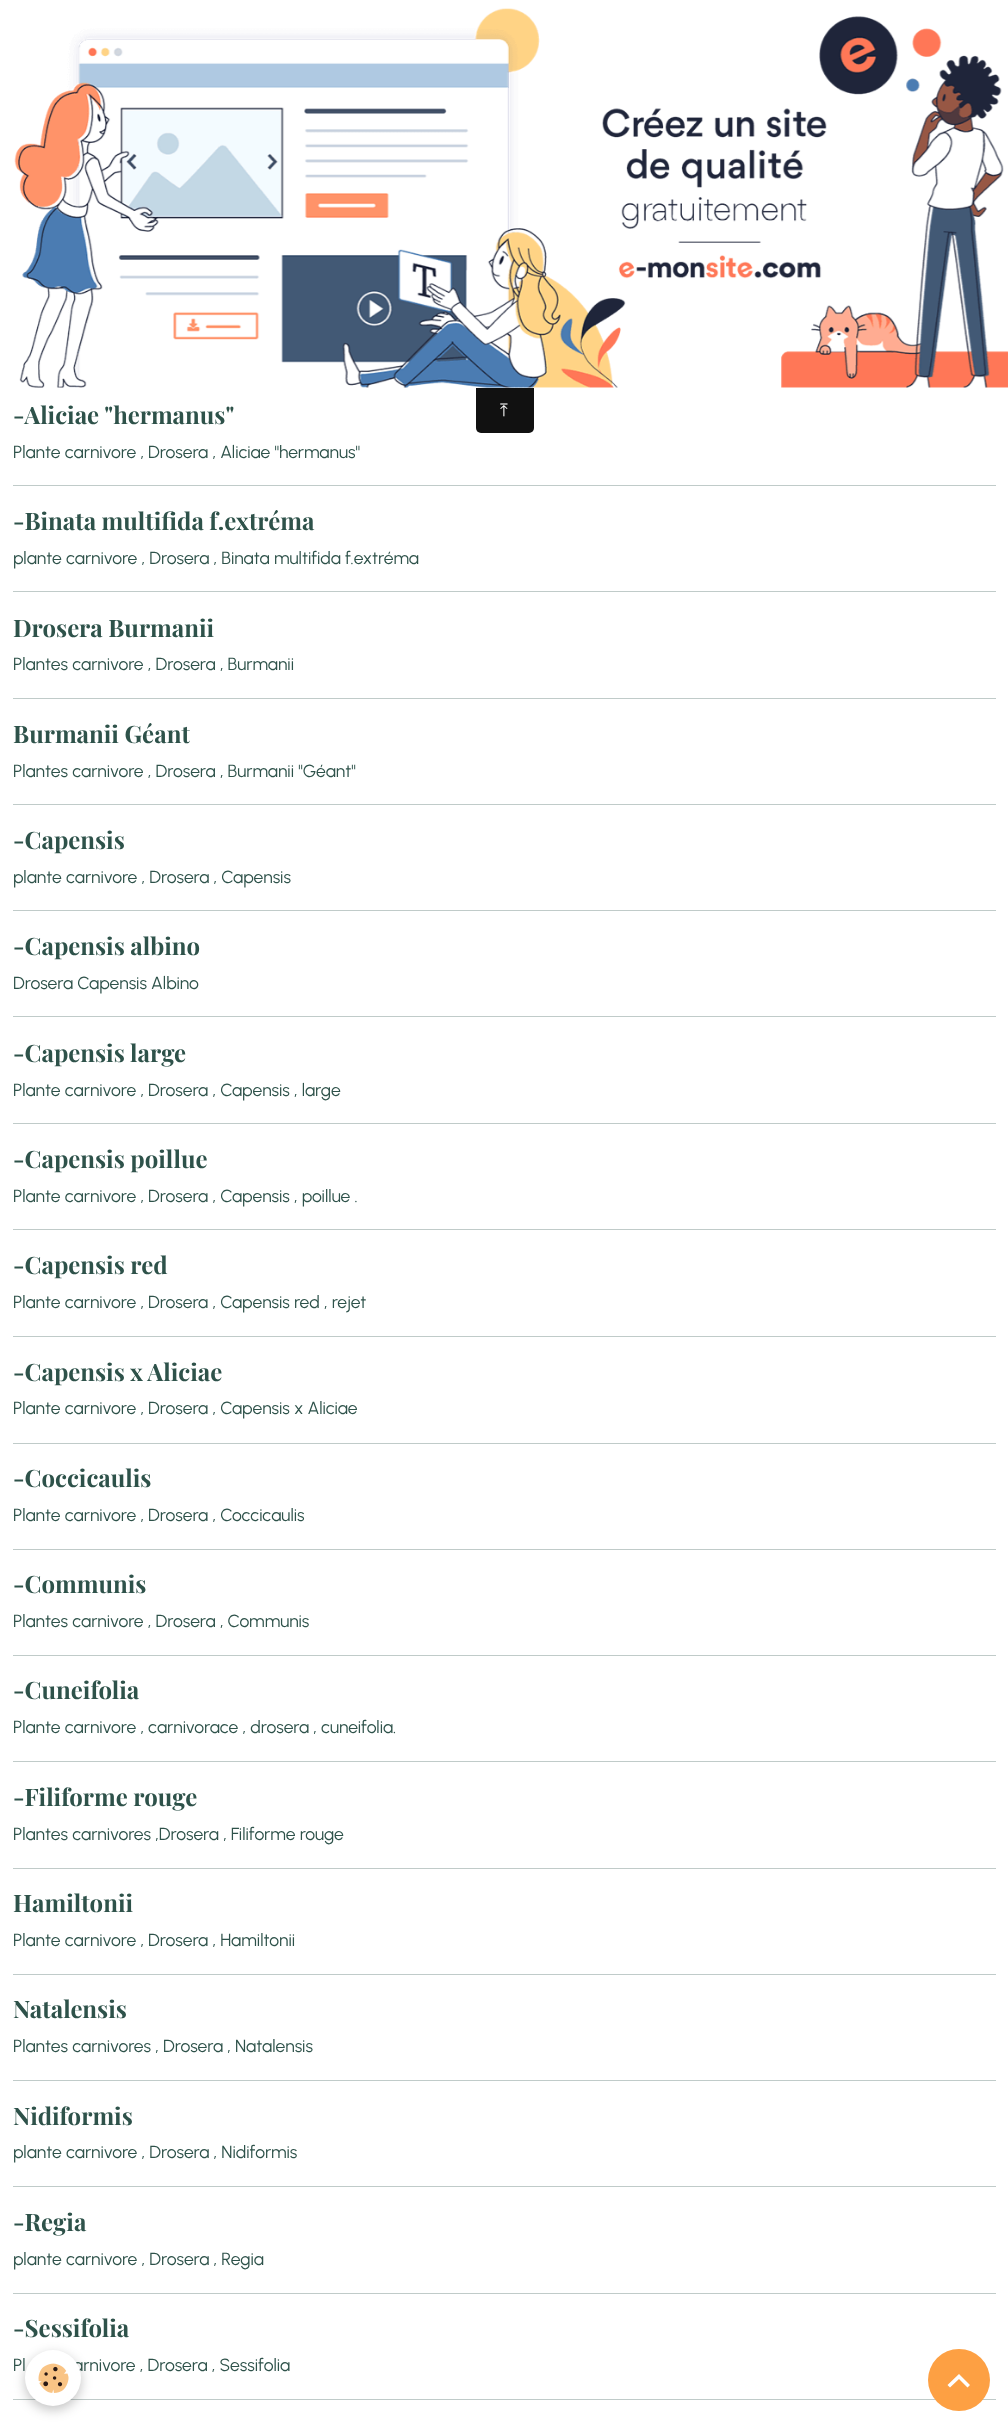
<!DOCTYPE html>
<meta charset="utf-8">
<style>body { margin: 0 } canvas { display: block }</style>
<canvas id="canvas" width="1008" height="2429"></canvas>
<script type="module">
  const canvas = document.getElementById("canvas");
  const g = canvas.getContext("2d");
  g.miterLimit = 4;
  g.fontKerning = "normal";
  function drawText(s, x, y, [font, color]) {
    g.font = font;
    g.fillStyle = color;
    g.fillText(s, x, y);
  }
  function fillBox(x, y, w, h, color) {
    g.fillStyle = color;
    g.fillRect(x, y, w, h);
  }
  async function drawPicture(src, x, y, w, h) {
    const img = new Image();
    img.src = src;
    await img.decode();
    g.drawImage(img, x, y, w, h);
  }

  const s1 = ["bold 24px Playfair Display", "#2E524A"];
  const s2 = ["17.5px Urbanist", "#2E524A"];
  const s3 = ["17.5px FreeSerif", "#FFFFFF"];

  fillBox(0, 0, 1008, 2429, "#FFFFFF");
  drawText("-Aliciae \"hermanus\"", 13, 424, s1);
  drawText("Plante carnivore , Drosera , Aliciae \"hermanus\"", 13, 458, s2);
  fillBox(13, 485, 983, 1, "#C0CBC9");
  drawText("-Binata multifida f.extréma", 13, 530, s1);
  drawText("plante carnivore , Drosera , Binata multifida f.extréma", 13, 564, s2);
  fillBox(13, 591, 983, 1, "#C0CBC9");
  drawText("Drosera Burmanii", 13, 637, s1);
  drawText("Plantes carnivore , Drosera , Burmanii", 13, 670, s2);
  fillBox(13, 698, 983, 1, "#C0CBC9");
  drawText("Burmanii Géant", 13, 743, s1);
  drawText("Plantes carnivore , Drosera , Burmanii \"Géant\"", 13, 777, s2);
  fillBox(13, 804, 983, 1, "#C0CBC9");
  drawText("-Capensis", 13, 849, s1);
  drawText("plante carnivore , Drosera , Capensis", 13, 883, s2);
  fillBox(13, 910, 983, 1, "#C0CBC9");
  drawText("-Capensis albino", 13, 955, s1);
  drawText("Drosera Capensis Albino", 13, 989, s2);
  fillBox(13, 1016, 983, 1, "#C0CBC9");
  drawText("-Capensis large", 13, 1062, s1);
  drawText("Plante carnivore , Drosera , Capensis , large", 13, 1096, s2);
  fillBox(13, 1123, 983, 1, "#C0CBC9");
  drawText("-Capensis poillue", 13, 1168, s1);
  drawText("Plante carnivore , Drosera , Capensis , poillue .", 13, 1202, s2);
  fillBox(13, 1229, 983, 1, "#C0CBC9");
  drawText("-Capensis red", 13, 1274, s1);
  drawText("Plante carnivore , Drosera , Capensis red , rejet", 13, 1308, s2);
  fillBox(13, 1336, 983, 1, "#C0CBC9");
  drawText("-Capensis x Aliciae", 13, 1381, s1);
  drawText("Plante carnivore , Drosera , Capensis x Aliciae", 13, 1414, s2);
  fillBox(13, 1443, 983, 1, "#C0CBC9");
  drawText("-Coccicaulis", 13, 1487, s1);
  drawText("Plante carnivore , Drosera , Coccicaulis", 13, 1521, s2);
  fillBox(13, 1549, 983, 1, "#C0CBC9");
  drawText("-Communis", 13, 1593, s1);
  drawText("Plantes carnivore , Drosera , Communis", 13, 1627, s2);
  fillBox(13, 1655, 983, 1, "#C0CBC9");
  drawText("-Cuneifolia", 13, 1699, s1);
  drawText("Plante carnivore , carnivorace , drosera , cuneifolia.", 13, 1733, s2);
  fillBox(13, 1761, 983, 1, "#C0CBC9");
  drawText("-Filiforme rouge", 13, 1806, s1);
  drawText("Plantes carnivores ,Drosera , Filiforme rouge", 13, 1840, s2);
  fillBox(13, 1868, 983, 1, "#C0CBC9");
  drawText("Hamiltonii", 13, 1912, s1);
  drawText("Plante carnivore , Drosera , Hamiltonii", 13, 1946, s2);
  fillBox(13, 1974, 983, 1, "#C0CBC9");
  drawText("Natalensis", 13, 2018, s1);
  drawText("Plantes carnivores , Drosera , Natalensis", 13, 2052, s2);
  fillBox(13, 2080, 983, 1, "#C0CBC9");
  drawText("Nidiformis", 13, 2125, s1);
  drawText("plante carnivore , Drosera , Nidiformis", 13, 2158, s2);
  fillBox(13, 2186, 983, 1, "#C0CBC9");
  drawText("-Regia", 13, 2231, s1);
  drawText("plante carnivore , Drosera , Regia", 13, 2265, s2);
  fillBox(13, 2293, 983, 1, "#C0CBC9");
  drawText("-Sessifolia", 13, 2337, s1);
  drawText("Pl", 13, 2371, s2);
  drawText("arnivore , Drosera , Sessifolia", 73, 2371, s2);
  fillBox(13, 2399, 983, 1, "#C0CBC9");
  await drawPicture("pic1.png", 14, 8, 994, 380);
  g.fillStyle = "#111111";
  g.beginPath();
  g.roundRect(476, 388, 58, 45, [0, 0, 5, 5]);
  g.fill();
  drawText("⤒", 500, 416, s3);
  g.fillStyle = "rgba(0, 0, 0, 0.24)";
  g.filter = "blur(6px)";
  g.beginPath();
  g.roundRect(25, 2354, 56, 56, 28);
  g.fill();
  g.filter = "none";
  g.fillStyle = "#FFFFFF";
  g.beginPath();
  g.arc(53, 2378, 28, 0, Math.PI * 2);
  g.fill();
  await drawPicture("pic2.png", 38, 2363, 31, 30);
  g.fillStyle = "#FDA043";
  g.beginPath();
  g.arc(959, 2380, 31, 0, Math.PI * 2);
  g.fill();
  g.fillStyle = "#FFFFFF";
  g.beginPath();
  g.moveTo(959, 2374);
  g.lineTo(970, 2385);
  g.lineTo(967.5, 2387.5);
  g.lineTo(959, 2379);
  g.lineTo(950, 2387.5);
  g.lineTo(947.5, 2385);
  g.closePath();
  g.fill();
</script>
